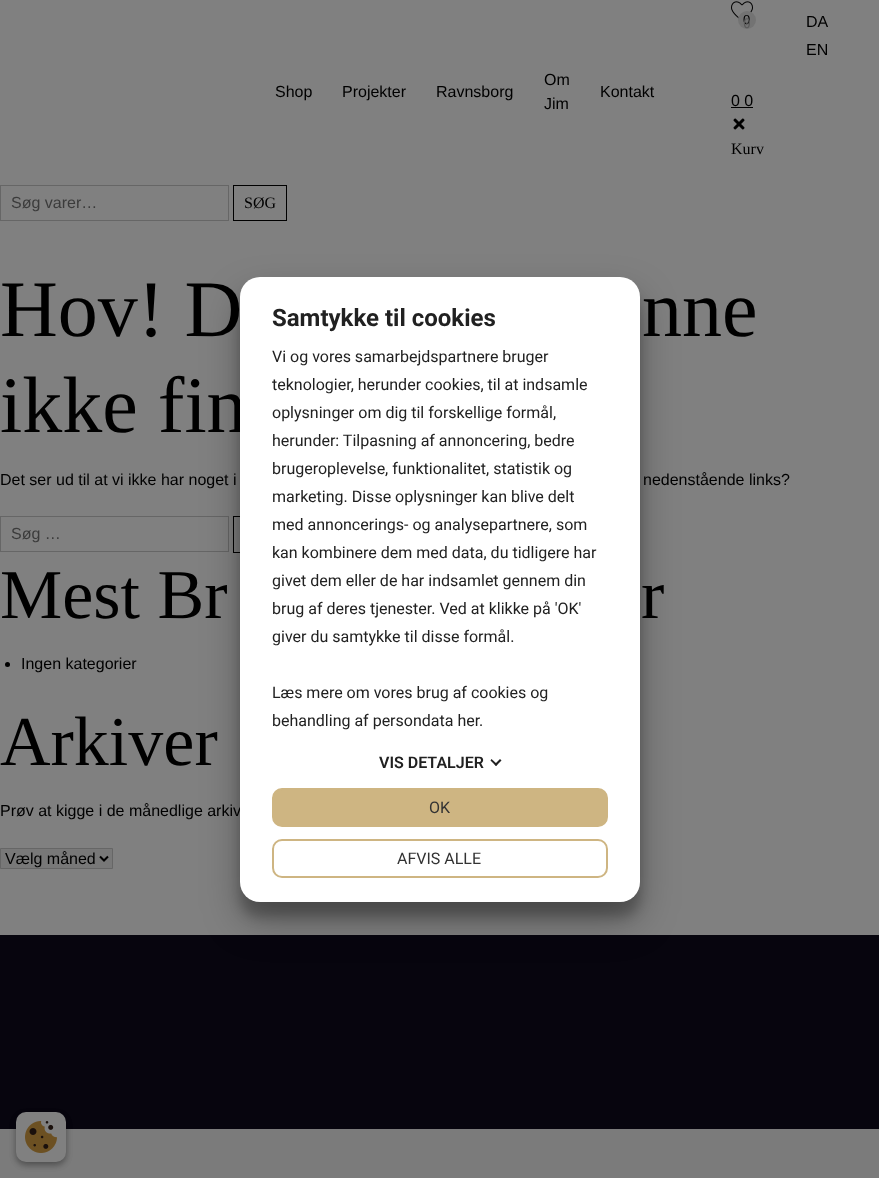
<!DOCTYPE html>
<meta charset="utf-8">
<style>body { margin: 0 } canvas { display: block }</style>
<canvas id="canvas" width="879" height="1178"></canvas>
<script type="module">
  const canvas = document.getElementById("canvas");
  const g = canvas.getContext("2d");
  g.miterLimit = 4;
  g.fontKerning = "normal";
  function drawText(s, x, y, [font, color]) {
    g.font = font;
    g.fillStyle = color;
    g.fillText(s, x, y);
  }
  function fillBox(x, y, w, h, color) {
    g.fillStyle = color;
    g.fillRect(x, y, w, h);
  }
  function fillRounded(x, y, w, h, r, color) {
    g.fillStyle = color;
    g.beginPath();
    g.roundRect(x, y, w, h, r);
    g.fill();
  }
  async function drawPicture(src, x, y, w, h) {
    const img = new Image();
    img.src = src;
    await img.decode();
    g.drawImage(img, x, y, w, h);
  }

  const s1 = ["13px Liberation Sans", "#000000"];
  const s2 = ["13px DejaVu Sans Mono", "#595959"];
  const s3 = ["16px Liberation Sans", "#000000"];
  const s4 = ["16px Liberation Serif", "#000000"];
  const s5 = ["16px Liberation Sans", "#3B3B3B"];
  const s6 = ["80px Liberation Serif", "#000000"];
  const s7 = ["70px Liberation Serif", "#000000"];
  const s8 = ["bold 24px Roboto", "#212121"];
  const s9 = ["16px Roboto", "#212121"];
  const s10 = ["600 16px Roboto", "#212121"];
  const s11 = ["16px Roboto", "#333333"];

  fillBox(0, 0, 879, 1178, "#808080");
  await drawPicture("pic1.png", 731, 1, 22, 18);
  g.fillStyle = "#737373";
  g.beginPath();
  g.arc(747, 20, 9, 0, Math.PI * 2);
  g.fill();
  drawText("0", 743, 24, s1);
  drawText("0", 743, 28, s2);
  drawText("0 0", 731, 106, s3);
  fillBox(731, 107, 22, 1, "#000000");
  await drawPicture("pic2.png", 733, 118, 12, 12);
  drawText("Kurv", 731, 154, s4);
  drawText("DA", 806, 27, s3);
  drawText("EN", 806, 55, s3);
  drawText("Shop", 275, 97, s3);
  drawText("Projekter", 342, 97, s3);
  drawText("Ravnsborg", 436, 97, s3);
  drawText("Om", 544, 85, s3);
  drawText("Jim", 544, 109, s3);
  drawText("Kontakt", 600, 97, s3);
  g.strokeStyle = "#666666";
  g.strokeRect(0.5, 185.5, 228, 35);
  drawText("Søg varer…", 11, 208, s5);
  g.strokeStyle = "#000000";
  g.strokeRect(233.5, 185.5, 53, 35);
  drawText("SØG", 244, 208, s4);
  drawText("Hov! D", 0, 336, s6);
  drawText("nne", 642, 336, s6);
  drawText("ikke fin", 0, 432, s6);
  drawText("Det ser ud til at vi ikke har noget i", 0, 485, s3);
  drawText("nedenstående links?", 643, 485, s3);
  g.strokeStyle = "#666666";
  g.strokeRect(0.5, 516.5, 228, 35);
  drawText("Søg …", 11, 539, s5);
  g.strokeStyle = "#000000";
  g.strokeRect(233.5, 516.5, 69, 36);
  drawText("Mest Br", 0, 618, s7);
  drawText("r", 641, 618, s7);
  g.beginPath();
  g.arc(7.5, 664.5, 2.5, 0, Math.PI * 2);
  g.fill();
  drawText("Ingen kategorier", 21, 669, s3);
  drawText("Arkiver", 0, 765, s7);
  drawText("Prøv at kigge i de månedlige arkiv", 0, 816, s3);
  g.fillStyle = "#787878";
  g.beginPath();
  g.rect(0.5, 848.5, 112, 20);
  g.fill();
  g.strokeStyle = "#666666";
  g.stroke();
  g.beginPath();
  g.moveTo(100, 856.5);
  g.lineTo(104, 860.5);
  g.lineTo(108, 856.5);
  g.strokeStyle = "#000000";
  g.lineWidth = 2;
  g.stroke();
  drawText("Vælg måned", 5, 864, s3);
  fillBox(0, 935, 879, 194, "#07050E");
  fillBox(0, 1129, 879, 49, "#7B7B7B");
  g.fillStyle = "rgba(0, 0, 0, 0.22)";
  g.filter = "blur(6px)";
  g.beginPath();
  g.roundRect(240, 292, 400, 625, 20);
  g.fill();
  g.filter = "none";
  g.fillStyle = "rgba(0, 0, 0, 0.3)";
  g.filter = "blur(19px)";
  g.beginPath();
  g.roundRect(240, 296, 400, 625, 20);
  g.fill();
  g.filter = "none";
  fillRounded(240, 277, 400, 625, 20, "#FFFFFF");
  drawText("Samtykke til cookies", 272, 326, s8);
  drawText("Vi og vores samarbejdspartnere bruger", 272, 362, s9);
  drawText("teknologier, herunder cookies, til at indsamle", 272, 390, s9);
  drawText("oplysninger om dig til forskellige formål,", 272, 418, s9);
  drawText("herunder: Tilpasning af annoncering, bedre", 272, 446, s9);
  drawText("brugeroplevelse, funktionalitet, statistik og", 272, 474, s9);
  drawText("marketing. Disse oplysninger kan blive delt", 272, 502, s9);
  drawText("med annoncerings- og analysepartnere, som", 272, 530, s9);
  drawText("kan kombinere dem med data, du tidligere har", 272, 558, s9);
  drawText("givet dem eller de har indsamlet gennem din", 272, 586, s9);
  drawText("brug af deres tjenester. Ved at klikke på 'OK'", 272, 614, s9);
  drawText("giver du samtykke til disse formål.", 272, 642, s9);
  drawText("Læs mere om vores brug af cookies og", 272, 698, s9);
  drawText("behandling af persondata her", 272, 726, s9);
  drawText(".", 479, 726, s9);
  drawText("VIS DETALJER", 379, 768, s10);
  g.beginPath();
  g.moveTo(500, 759);
  g.lineTo(501.5, 760.5);
  g.lineTo(496, 766);
  g.lineTo(494.5, 764.5);
  g.closePath();
  g.fill();
  g.beginPath();
  g.moveTo(491.5, 759);
  g.lineTo(497.5, 764.5);
  g.lineTo(496, 766);
  g.lineTo(490.5, 760.5);
  g.closePath();
  g.fill();
  g.fillStyle = "#CEB582";
  g.beginPath();
  g.roundRect(273, 789, 334, 37, 9);
  g.fill();
  g.strokeStyle = "#CEB582";
  g.stroke();
  drawText("OK", 429, 813, s11);
  g.beginPath();
  g.roundRect(273, 840, 334, 37, 9);
  g.stroke();
  drawText("AFVIS ALLE", 397, 864, s11);
  g.fillStyle = "rgba(0, 0, 0, 0.23)";
  g.filter = "blur(3px)";
  g.beginPath();
  g.roundRect(16, 1115, 50, 50, 10);
  g.fill();
  g.filter = "none";
  g.fillStyle = "rgba(0, 0, 0, 0.16)";
  g.filter = "blur(3px)";
  g.beginPath();
  g.roundRect(16, 1115, 50, 50, 10);
  g.fill();
  g.filter = "none";
  fillRounded(16, 1112, 50, 50, 10, "#808080");
  await drawPicture("pic3.png", 25, 1121, 32, 32);
</script>
